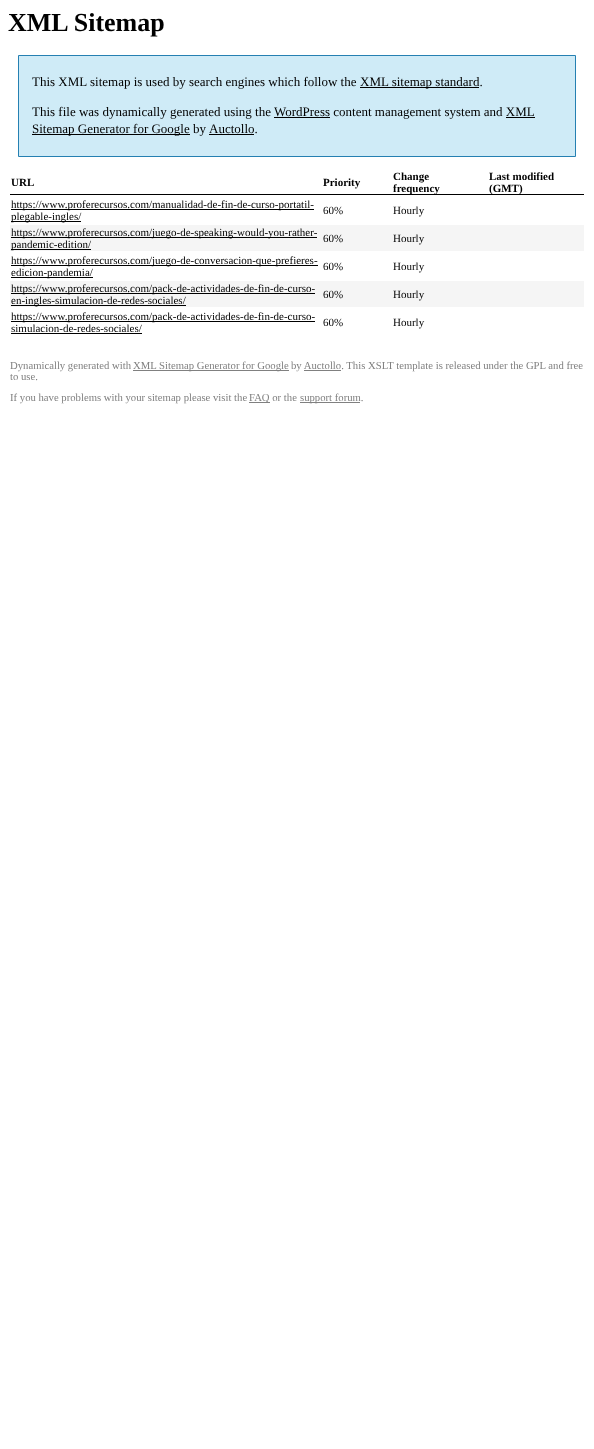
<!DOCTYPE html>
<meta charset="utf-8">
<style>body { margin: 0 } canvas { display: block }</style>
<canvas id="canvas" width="594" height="1449"></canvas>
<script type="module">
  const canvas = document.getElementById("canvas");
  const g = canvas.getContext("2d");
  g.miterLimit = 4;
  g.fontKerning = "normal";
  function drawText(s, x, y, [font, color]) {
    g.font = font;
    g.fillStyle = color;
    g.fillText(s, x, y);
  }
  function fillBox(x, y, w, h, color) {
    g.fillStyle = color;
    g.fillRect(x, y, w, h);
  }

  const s1 = ["bold 26px Liberation Serif", "#000000"];
  const s2 = ["13px Liberation Serif", "#000000"];
  const s3 = ["bold 11px Liberation Serif", "#000000"];
  const s4 = ["11px Liberation Serif", "#000000"];
  const s5 = ["10.7px Liberation Serif", "#808080"];

  fillBox(0, 0, 594, 1449, "#FFFFFF");
  drawText("XML Sitemap", 8, 31, s1);
  g.fillStyle = "#CFEBF7";
  g.beginPath();
  g.rect(18.5, 55.5, 557, 101);
  g.fill();
  g.strokeStyle = "#2580B2";
  g.stroke();
  drawText("This XML sitemap is used by search engines which follow the", 32, 86, s2);
  fillBox(360, 87, 119, 1, "#000000");
  drawText("XML sitemap standard.", 360, 86, s2);
  drawText("This file was dynamically generated using the WordPress content management system and XML", 32, 116, s2);
  fillBox(274, 117, 56, 1, "#000000");
  fillBox(32, 134, 158, 1, "#000000");
  drawText("Sitemap Generator for Google", 32, 133, s2);
  fillBox(506, 117, 29, 1, "#000000");
  drawText("by", 193, 133, s2);
  drawText("Auctollo.", 209, 133, s2);
  fillBox(209, 134, 45, 1, "#000000");
  fillBox(10, 194, 574, 1, "#000000");
  drawText("URL", 11, 186, s3);
  drawText("Priority", 323, 186, s3);
  drawText("Change", 393, 180, s3);
  drawText("frequency", 393, 192, s3);
  drawText("Last modified", 489, 180, s3);
  drawText("(GMT)", 489, 192, s3);
  fillBox(11, 209, 303, 1, "#000000");
  drawText("https://www.proferecursos.com/manualidad-de-fin-de-curso-portatil-", 11, 208, s4);
  fillBox(11, 221, 70, 1, "#000000");
  drawText("plegable-ingles/", 11, 220, s4);
  drawText("60%", 323, 214, s4);
  drawText("Hourly", 393, 214, s4);
  fillBox(10, 225, 574, 26, "#F5F5F5");
  fillBox(11, 237, 306, 1, "#000000");
  drawText("https://www.proferecursos.com/juego-de-speaking-would-you-rather-", 11, 236, s4);
  fillBox(11, 249, 80, 1, "#000000");
  drawText("pandemic-edition/", 11, 248, s4);
  drawText("60%", 323, 242, s4);
  drawText("Hourly", 393, 242, s4);
  fillBox(11, 265, 307, 1, "#000000");
  drawText("https://www.proferecursos.com/juego-de-conversacion-que-prefieres-", 11, 264, s4);
  fillBox(11, 277, 82, 1, "#000000");
  drawText("edicion-pandemia/", 11, 276, s4);
  drawText("60%", 323, 270, s4);
  drawText("Hourly", 393, 270, s4);
  fillBox(10, 281, 574, 26, "#F5F5F5");
  fillBox(11, 293, 304, 1, "#000000");
  drawText("https://www.proferecursos.com/pack-de-actividades-de-fin-de-curso-", 11, 292, s4);
  fillBox(11, 305, 175, 1, "#000000");
  drawText("en-ingles-simulacion-de-redes-sociales/", 11, 304, s4);
  drawText("60%", 323, 298, s4);
  drawText("Hourly", 393, 298, s4);
  fillBox(11, 321, 304, 1, "#000000");
  drawText("https://www.proferecursos.com/pack-de-actividades-de-fin-de-curso-", 11, 320, s4);
  drawText("simulacion-de-redes-sociales/", 11, 332, s4);
  fillBox(11, 333, 131, 1, "#000000");
  drawText("60%", 323, 326, s4);
  drawText("Hourly", 393, 326, s4);
  drawText("Dynamically generated with", 10, 369, s5);
  fillBox(133, 370, 156, 1, "#808080");
  drawText("XML Sitemap Generator for Google", 133, 369, s5);
  drawText("by Auctollo. This XSLT template is released under the GPL and free", 291, 369, s5);
  fillBox(304, 370, 37, 1, "#808080");
  drawText("to use.", 10, 380, s5);
  drawText("If you have problems with your sitemap please visit the", 10, 401, s5);
  fillBox(249, 402, 21, 1, "#808080");
  drawText("FAQ or the", 249, 401, s5);
  fillBox(300, 402, 60, 1, "#808080");
  drawText("support forum.", 300, 401, s5);
</script>
